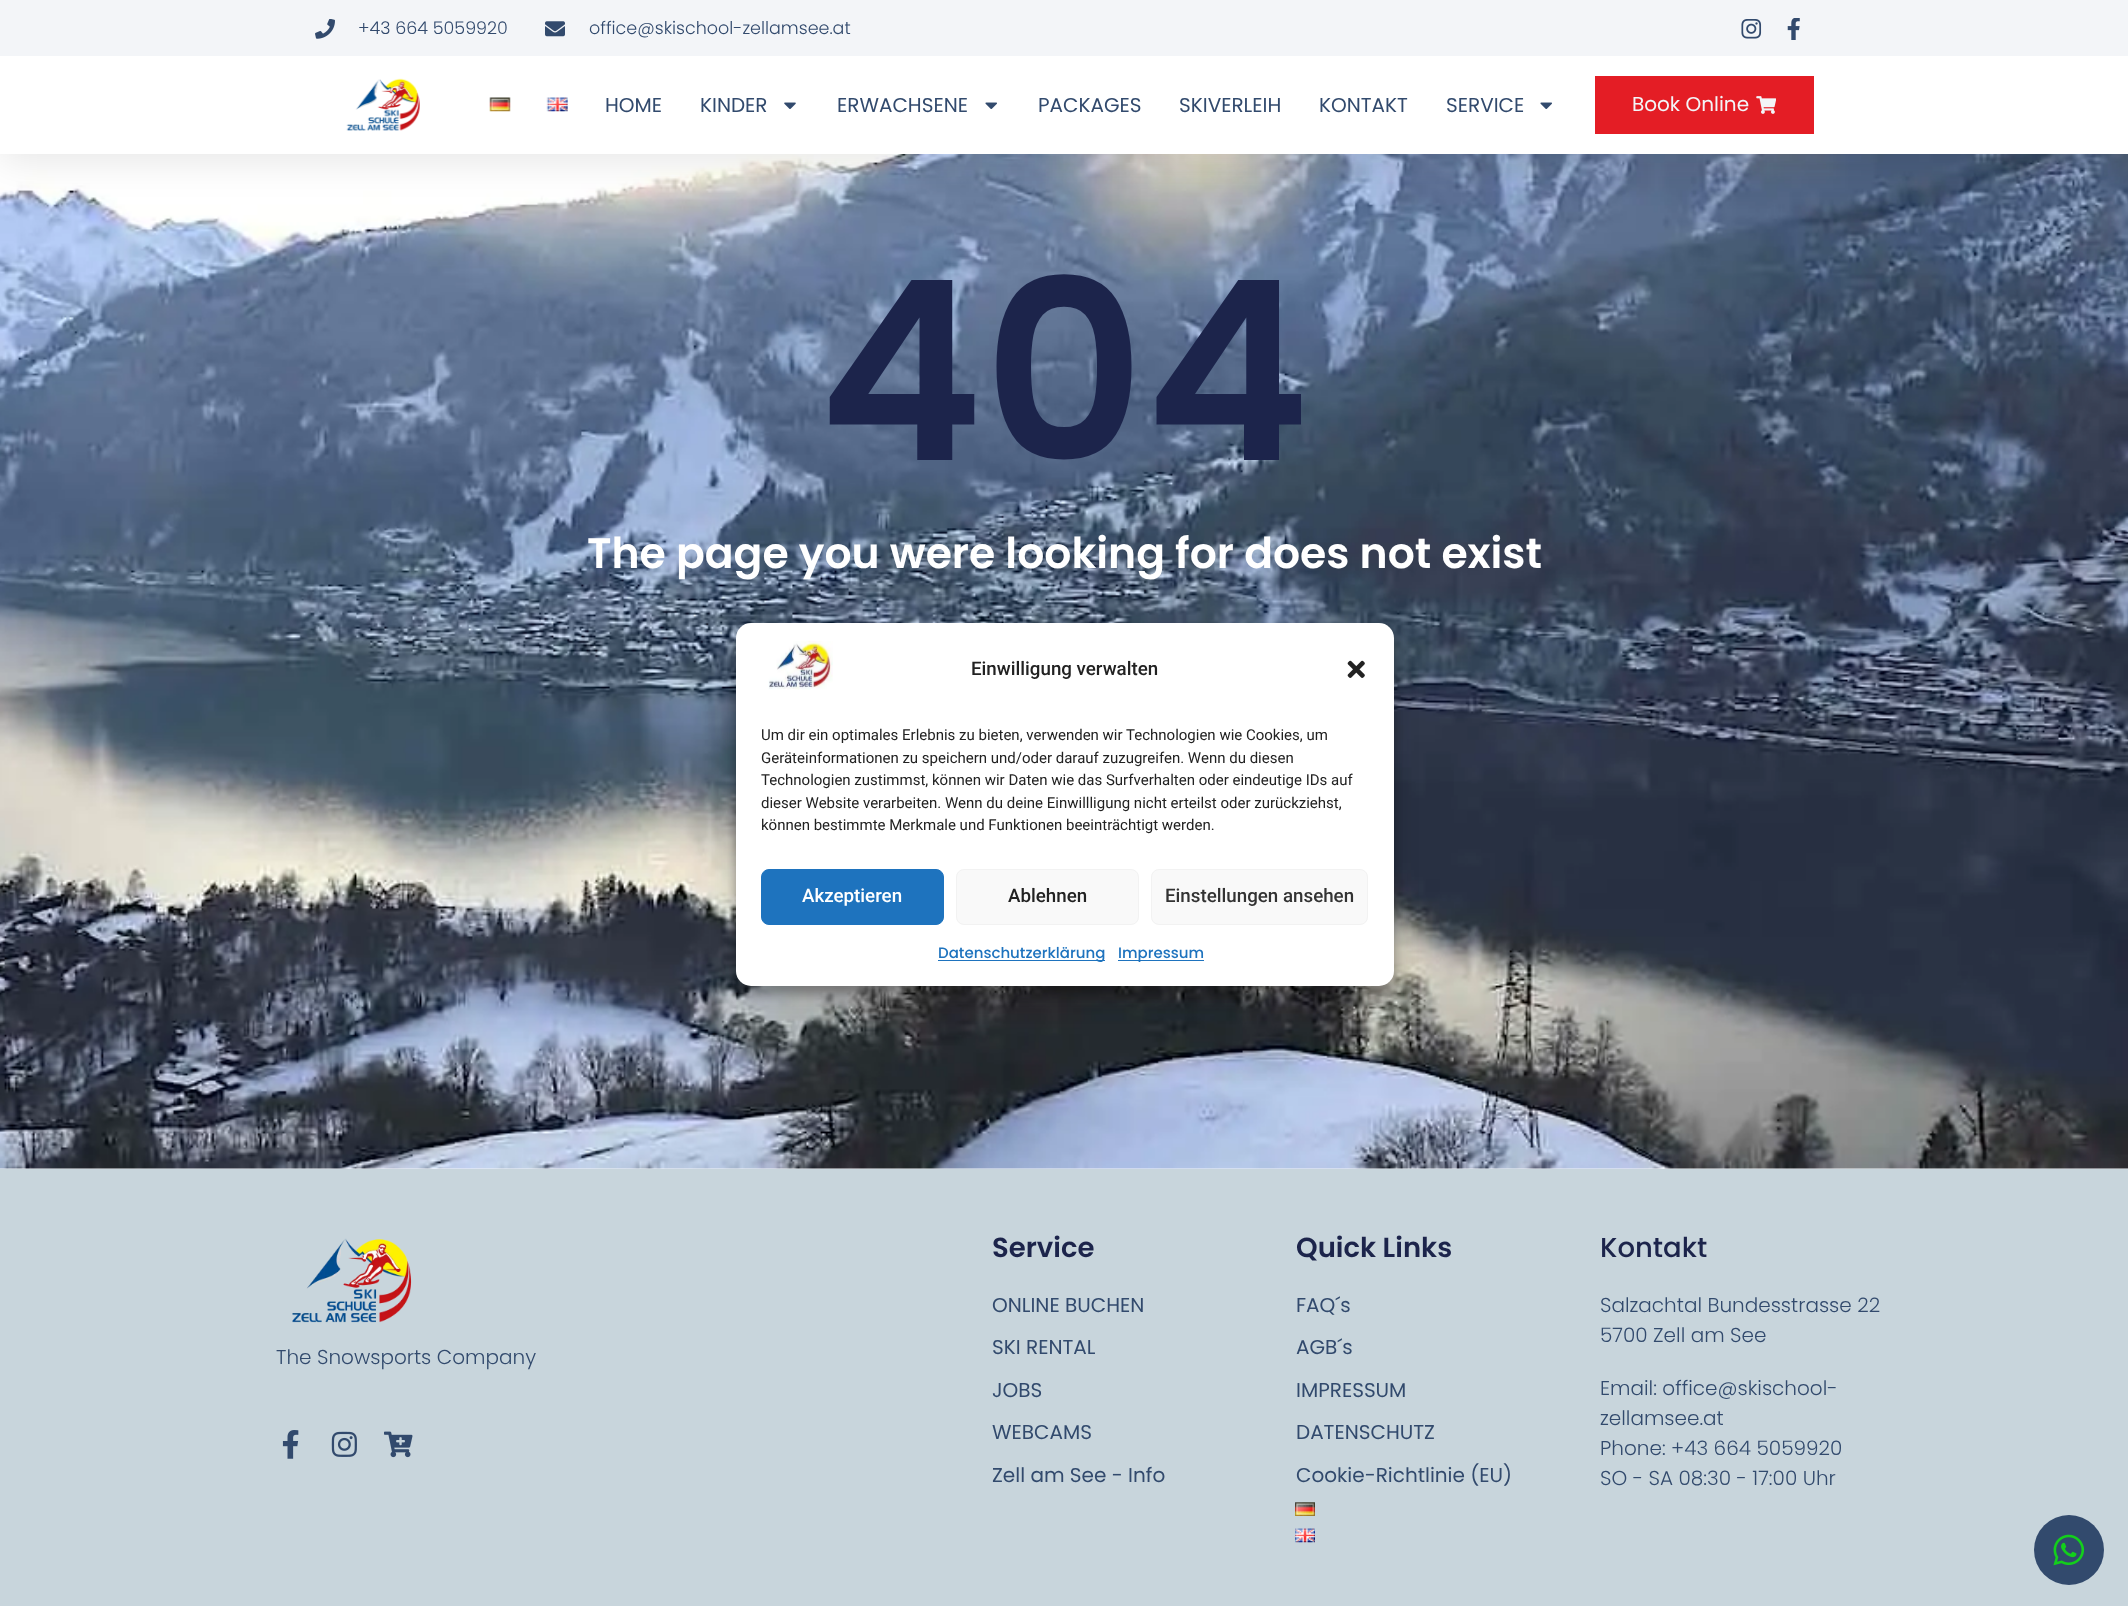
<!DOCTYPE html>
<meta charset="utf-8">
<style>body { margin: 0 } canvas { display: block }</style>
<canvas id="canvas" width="2128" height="1606"></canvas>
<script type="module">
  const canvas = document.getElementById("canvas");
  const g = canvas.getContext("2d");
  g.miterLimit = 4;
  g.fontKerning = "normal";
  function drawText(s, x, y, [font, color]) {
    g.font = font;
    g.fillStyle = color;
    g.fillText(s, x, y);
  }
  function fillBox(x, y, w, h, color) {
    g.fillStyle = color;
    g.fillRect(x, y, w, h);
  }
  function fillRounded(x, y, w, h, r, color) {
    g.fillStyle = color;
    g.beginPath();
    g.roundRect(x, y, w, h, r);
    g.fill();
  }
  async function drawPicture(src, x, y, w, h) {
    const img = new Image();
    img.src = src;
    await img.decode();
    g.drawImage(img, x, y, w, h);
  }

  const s1 = ["300 17.5px Poppins", "#324A6D"];
  const s2 = ["20px Poppins", "#324A6D"];
  const s3 = ["20px Poppins", "#F3F5F8"];
  const s4 = ["600 250px Poppins", "#1C244B"];
  const s5 = ["600 42.5px Poppins", "#FFFFFF"];
  const s6 = ["500 18.75px Roboto", "#222222"];
  const s7 = ["15px Roboto", "#222222"];
  const s8 = ["500 18.75px Roboto", "#FFFFFF"];
  const s9 = ["500 18.75px Roboto", "#333333"];
  const s10 = ["500 15px Poppins", "#1E73BE"];
  const s11 = ["300 20px Poppins", "#324A6D"];
  const s12 = ["600 27.5px Poppins", "#1C244B"];
  const s13 = ["500 27.5px Poppins", "#1C244B"];

  fillBox(0, 0, 2128, 1606, "#F3F5F8");
  await drawPicture("pic11.png", 0, 154, 2128, 1015);
  g.fillStyle = "rgba(0, 0, 0, 0.1)";
  g.filter = "blur(19px)";
  g.beginPath();
  g.rect(0, 6, 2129, 154);
  g.fill();
  g.filter = "none";
  fillBox(0, 0, 2128, 56, "#F3F5F8");
  await drawPicture("pic1.png", 315, 19, 20, 20);
  drawText("+43 664 5059920", 358, 34, s1);
  await drawPicture("pic2.png", 545, 21, 20, 16);
  drawText("office@skischool-zellamsee.at", 589, 34, s1);
  await drawPicture("pic3.png", 1741, 19, 21, 20);
  await drawPicture("pic4.png", 1787, 18, 13, 22);
  fillBox(0, 56, 2128, 98, "#FFFFFF");
  await drawPicture("pic5.png", 346, 78, 74, 53);
  await drawPicture("pic6.png", 489, 97, 22, 15);
  await drawPicture("pic7.png", 546, 97, 22, 15);
  drawText("HOME", 605, 112, s2);
  drawText("KINDER", 700, 112, s2);
  await drawPicture("pic8.png", 784, 102, 12, 7);
  drawText("ERWACHSENE", 837, 112, s2);
  await drawPicture("pic9.png", 985, 102, 12, 7);
  drawText("PACKAGES", 1038, 112, s2);
  drawText("SKIVERLEIH", 1179, 112, s2);
  drawText("KONTAKT", 1319, 112, s2);
  drawText("SERVICE", 1446, 112, s2);
  await drawPicture("pic9.png", 1540, 102, 12, 7);
  fillBox(1595, 76, 219, 58, "#E41D25");
  drawText("Book Online", 1632, 111, s3);
  await drawPicture("pic10.png", 1756, 96, 20, 18);
  drawText("404", 818, 460, s4);
  drawText("The page you were looking for does not exist", 587, 568, s5);
  g.fillStyle = "rgba(0, 0, 0, 0.23)";
  g.filter = "blur(4px)";
  g.beginPath();
  g.roundRect(736, 630, 658, 364, 15);
  g.fill();
  g.filter = "none";
  g.fillStyle = "rgba(0, 0, 0, 0.19)";
  g.filter = "blur(12.5px)";
  g.beginPath();
  g.roundRect(736, 635, 658, 364, 15);
  g.fill();
  g.filter = "none";
  fillRounded(736, 623, 658, 363, 15, "#FFFFFF");
  await drawPicture("pic12.png", 768, 640, 65, 50);
  drawText("Einwilligung verwalten", 971, 675, s6);
  await drawPicture("pic13.png", 1347, 660, 18, 18);
  drawText("Um dir ein optimales Erlebnis zu bieten, verwenden wir Technologien wie Cookies, um", 761, 740, s7);
  drawText("Geräteinformationen zu speichern und/oder darauf zuzugreifen. Wenn du diesen", 761, 763, s7);
  drawText("Technologien zustimmst, können wir Daten wie das Surfverhalten oder eindeutige IDs auf", 761, 785, s7);
  drawText("dieser Website verarbeiten. Wenn du deine Einwillligung nicht erteilst oder zurückziehst,", 761, 808, s7);
  drawText("können bestimmte Merkmale und Funktionen beeinträchtigt werden.", 761, 830, s7);
  g.fillStyle = "#1E73BE";
  g.beginPath();
  g.roundRect(761.5, 869.5, 182, 55, 7.5);
  g.fill();
  g.strokeStyle = "#1E73BE";
  g.stroke();
  drawText("Akzeptieren", 802, 902, s8);
  g.fillStyle = "#F9F9F9";
  g.beginPath();
  g.roundRect(956.5, 869.5, 182, 55, 7.5);
  g.fill();
  g.strokeStyle = "#F2F2F2";
  g.stroke();
  drawText("Ablehnen", 1008, 902, s6);
  g.fillStyle = "#F9F9F9";
  g.beginPath();
  g.roundRect(1151.5, 869.5, 216, 55, 7.5);
  g.fill();
  g.stroke();
  drawText("Einstellungen ansehen", 1165, 902, s9);
  fillBox(938, 960, 167, 1, "#1E73BE");
  drawText("Datenschutzerklärung", 938, 958, s10);
  fillBox(1118, 960, 86, 1, "#1E73BE");
  drawText("Impressum", 1118, 958, s10);
  fillBox(0, 1169, 2128, 437, "#C8D5DC");
  await drawPicture("pic14.png", 292, 1238, 120, 85);
  drawText("The Snowsports Company", 276, 1364, s11);
  await drawPicture("pic15.png", 282, 1430, 17, 29);
  await drawPicture("pic16.png", 331, 1431, 26, 26);
  await drawPicture("pic17.png", 384, 1431, 29, 27);
  drawText("Service", 992, 1257, s12);
  drawText("ONLINE BUCHEN", 992, 1312, s2);
  drawText("SKI RENTAL", 992, 1354, s2);
  drawText("JOBS", 992, 1397, s2);
  drawText("WEBCAMS", 992, 1439, s2);
  drawText("Zell am See - Info", 992, 1482, s2);
  drawText("Quick Links", 1296, 1257, s12);
  drawText("FAQ´s", 1296, 1312, s2);
  drawText("AGB´s", 1296, 1354, s2);
  drawText("IMPRESSUM", 1296, 1397, s2);
  drawText("DATENSCHUTZ", 1296, 1439, s2);
  drawText("Cookie-Richtlinie (EU)", 1296, 1482, s2);
  await drawPicture("pic18.png", 1295, 1502, 20, 14);
  await drawPicture("pic19.png", 1295, 1528, 20, 15);
  drawText("Kontakt", 1600, 1257, s13);
  drawText("Salzachtal Bundesstrasse 22", 1600, 1312, s11);
  drawText("5700 Zell am See", 1600, 1342, s11);
  drawText("Email: office@skischool-", 1600, 1395, s11);
  drawText("zellamsee.at", 1600, 1425, s11);
  drawText("Phone: +43 664 5059920", 1600, 1455, s11);
  drawText("SO - SA 08:30 - 17:00 Uhr", 1600, 1485, s11);
  g.beginPath();
  g.arc(2069, 1550, 35, 0, Math.PI * 2);
  g.fill();
  await drawPicture("pic20.png", 2053, 1534, 32, 32);
</script>
